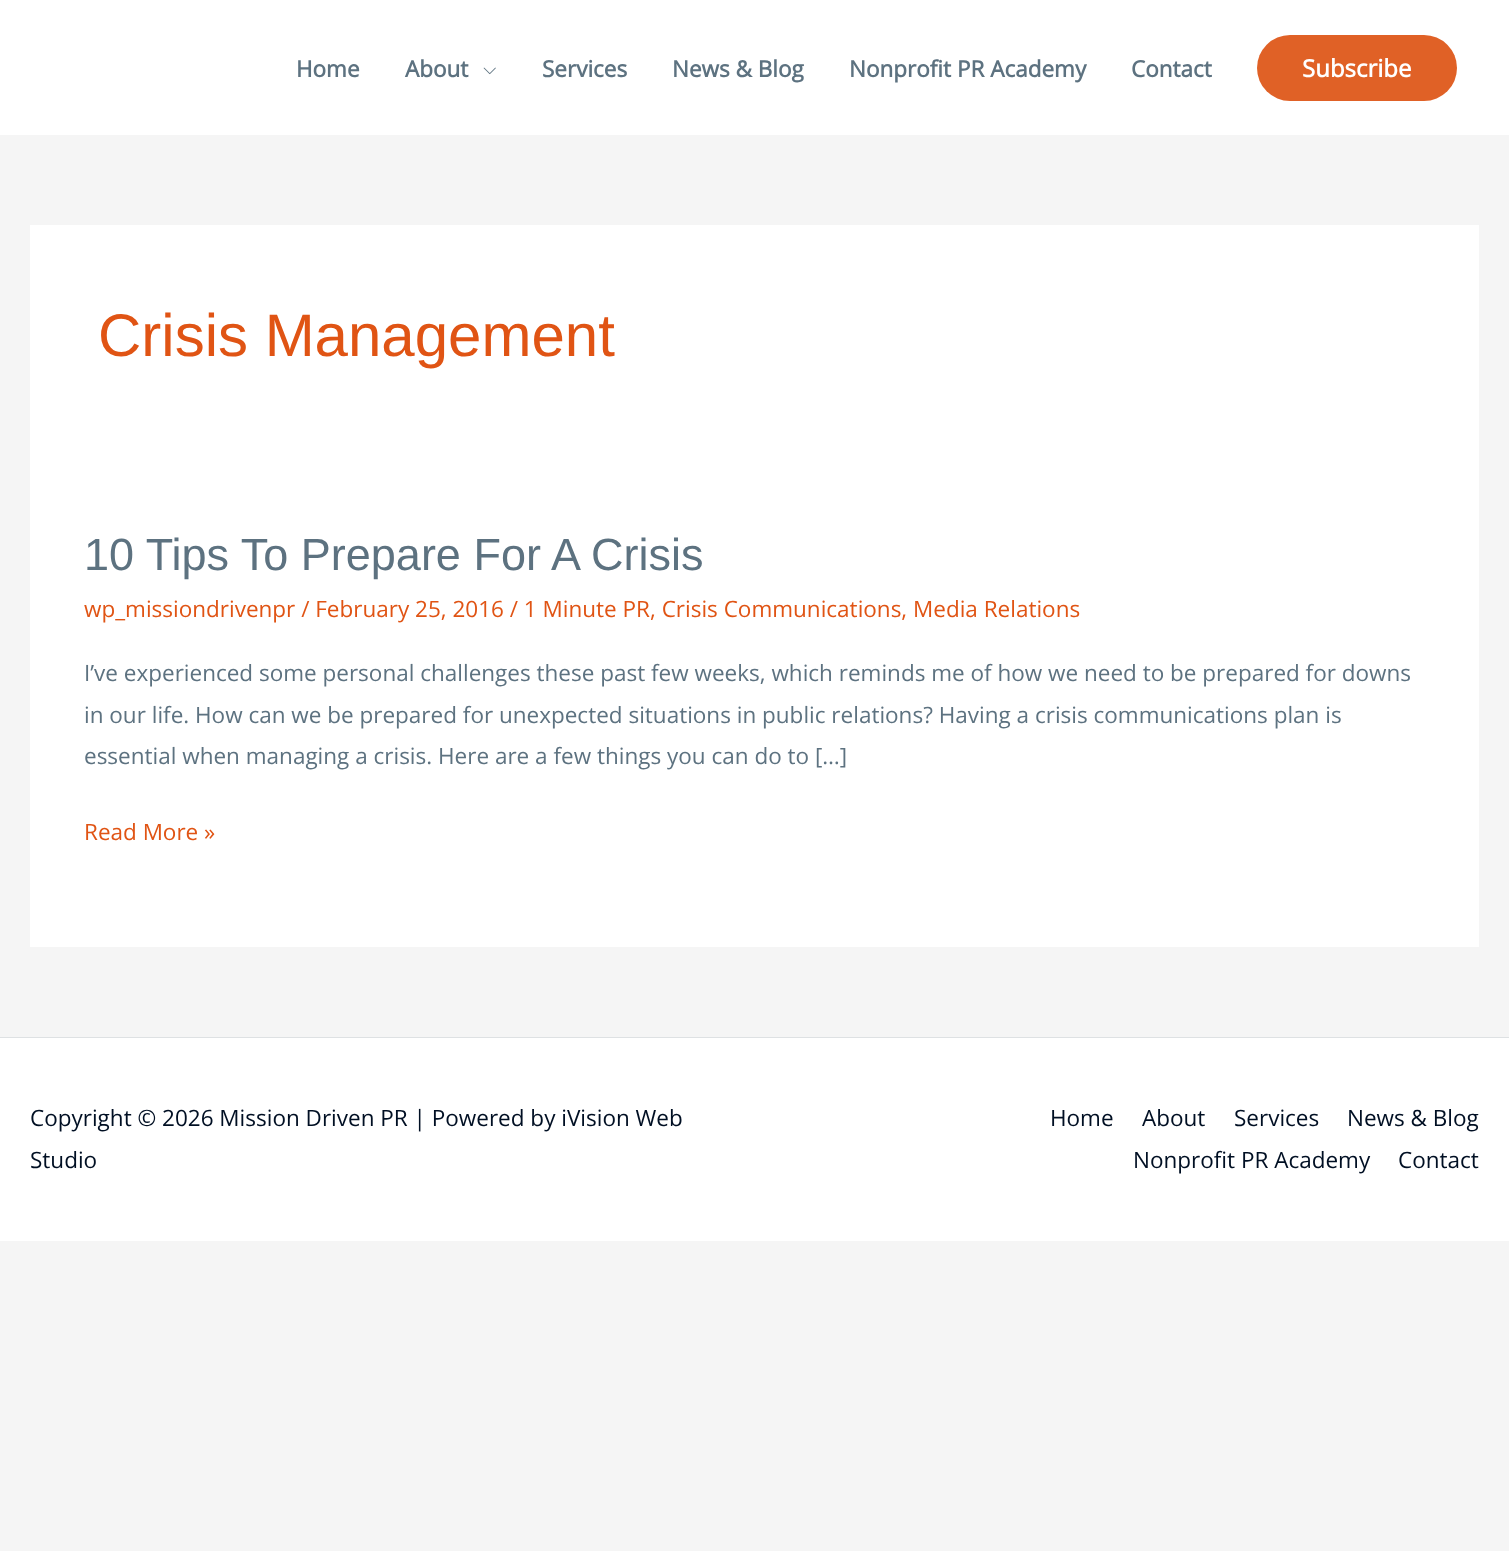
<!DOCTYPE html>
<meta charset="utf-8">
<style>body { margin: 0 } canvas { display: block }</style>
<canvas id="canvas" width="1509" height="1551"></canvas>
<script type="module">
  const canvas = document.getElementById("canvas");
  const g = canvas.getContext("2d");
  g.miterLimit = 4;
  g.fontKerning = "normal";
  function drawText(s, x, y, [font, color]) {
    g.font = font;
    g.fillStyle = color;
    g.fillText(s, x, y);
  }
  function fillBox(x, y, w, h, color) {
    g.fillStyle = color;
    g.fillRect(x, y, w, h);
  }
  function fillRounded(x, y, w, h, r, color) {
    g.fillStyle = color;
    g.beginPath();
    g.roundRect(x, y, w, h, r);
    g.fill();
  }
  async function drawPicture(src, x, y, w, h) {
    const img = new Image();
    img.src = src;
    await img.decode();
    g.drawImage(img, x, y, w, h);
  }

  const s1 = ["bold 22.5px Open Sans", "#5D7280"];
  const s2 = ["bold 24px Open Sans", "#FFFFFF"];
  const s3 = ["60px Liberation Sans", "#E05414"];
  const s4 = ["45px Liberation Sans", "#5D7280"];
  const s5 = ["22.5px Open Sans", "#E05414"];
  const s6 = ["22.5px Open Sans", "#5D7280"];
  const s7 = ["22.5px Open Sans", "#000F23"];

  fillBox(0, 0, 1509, 1551, "#F5F5F5");
  fillBox(0, 0, 1509, 135, "#FFFFFF");
  drawText("Home", 296, 77, s1);
  drawText("About", 405, 77, s1);
  await drawPicture("pic1.png", 483, 67, 13, 8);
  drawText("Services", 542, 77, s1);
  drawText("News & Blog", 672, 77, s1);
  drawText("Nonprofit PR Academy", 849, 77, s1);
  drawText("Contact", 1131, 77, s1);
  fillRounded(1257, 35, 200, 66, 33, "#E06126");
  drawText("Subscribe", 1302, 77, s2);
  fillBox(30, 225, 1449, 722, "#FFFFFF");
  drawText("Crisis Management", 98, 356, s3);
  drawText("10 Tips To Prepare For A Crisis", 84, 570, s4);
  drawText("wp_missiondrivenpr / February 25, 2016 / 1 Minute PR, Crisis Communications, Media Relations", 84, 617, s5);
  drawText("I’ve experienced some personal challenges these past few weeks, which reminds me of how we need to be prepared for downs", 84, 681, s6);
  drawText("in our life. How can we be prepared for unexpected situations in public relations? Having a crisis communications plan is", 84, 723, s6);
  drawText("essential when managing a crisis. Here are a few things you can do to […]", 84, 764, s6);
  drawText("Read More »", 84, 840, s5);
  fillBox(0, 1037, 1509, 1, "#DEE1E3");
  fillBox(0, 1038, 1509, 203, "#FFFFFF");
  drawText("Copyright © 2026 Mission Driven PR | Powered by iVision Web", 30, 1126, s7);
  drawText("Studio", 30, 1168, s7);
  drawText("Home", 1050, 1126, s7);
  drawText("About", 1142, 1126, s7);
  drawText("Services", 1234, 1126, s7);
  drawText("News & Blog", 1347, 1126, s7);
  drawText("Nonprofit PR Academy", 1133, 1168, s7);
  drawText("Contact", 1398, 1168, s7);
</script>
